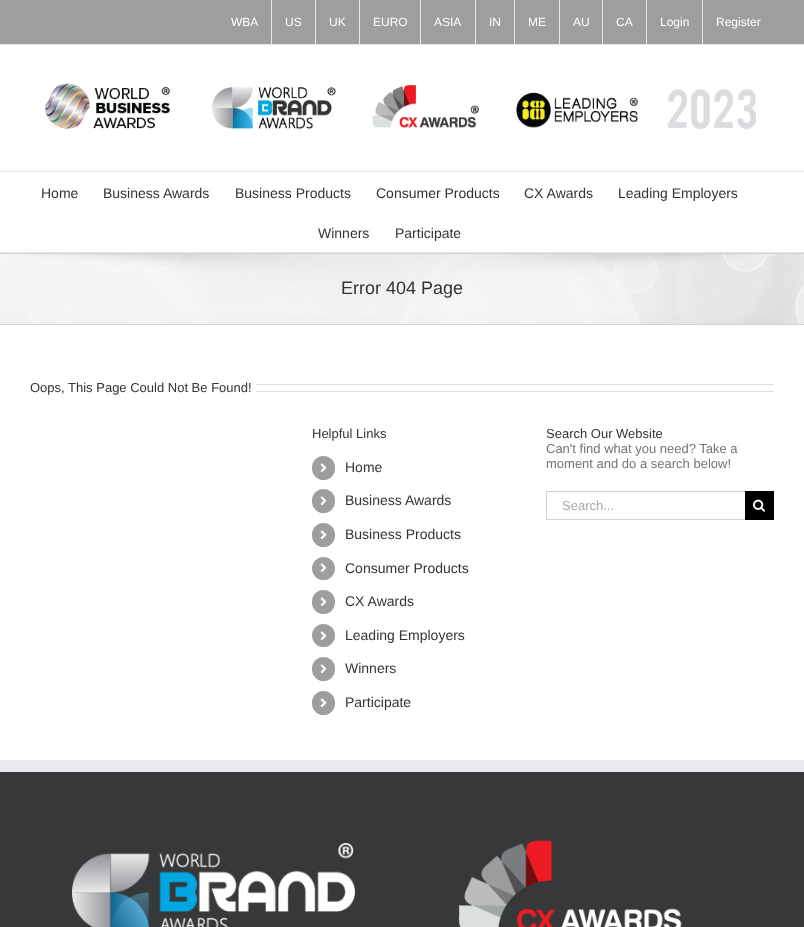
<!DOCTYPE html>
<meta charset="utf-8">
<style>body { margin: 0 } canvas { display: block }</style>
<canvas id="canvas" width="804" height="927"></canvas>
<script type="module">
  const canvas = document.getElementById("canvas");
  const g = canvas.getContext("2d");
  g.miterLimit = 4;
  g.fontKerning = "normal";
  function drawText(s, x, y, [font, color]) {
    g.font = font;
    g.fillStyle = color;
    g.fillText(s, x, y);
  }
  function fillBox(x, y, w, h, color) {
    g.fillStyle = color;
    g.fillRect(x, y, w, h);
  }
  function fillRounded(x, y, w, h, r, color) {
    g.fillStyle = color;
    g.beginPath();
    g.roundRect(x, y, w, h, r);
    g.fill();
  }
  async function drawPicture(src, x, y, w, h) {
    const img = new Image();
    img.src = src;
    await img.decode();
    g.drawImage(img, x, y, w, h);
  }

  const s1 = ["12px Liberation Sans", "#FFFFFF"];
  const s2 = ["14px Liberation Sans", "#333333"];
  const s3 = ["18px Liberation Sans", "#333333"];
  const s4 = ["13px Liberation Sans", "#333333"];
  const s5 = ["13px Liberation Sans", "#747474"];
  const s6 = ["13px Liberation Sans", "#AAA9A9"];

  fillBox(0, 0, 804, 927, "#FFFFFF");
  fillBox(0, 0, 804, 44, "#9E9E9E");
  fillBox(0, 44, 804, 1, "#E5E5E5");
  drawText("WBA", 231, 26, s1);
  fillBox(271, 0, 1, 44, "#E5E5E5");
  drawText("US", 285, 26, s1);
  fillBox(315, 0, 1, 44, "#E5E5E5");
  drawText("UK", 329, 26, s1);
  fillBox(359, 0, 1, 44, "#E5E5E5");
  drawText("EURO", 373, 26, s1);
  fillBox(420, 0, 1, 44, "#E5E5E5");
  drawText("ASIA", 434, 26, s1);
  fillBox(475, 0, 1, 44, "#E5E5E5");
  drawText("IN", 489, 26, s1);
  fillBox(514, 0, 1, 44, "#E5E5E5");
  drawText("ME", 528, 26, s1);
  fillBox(559, 0, 1, 44, "#E5E5E5");
  drawText("AU", 573, 26, s1);
  fillBox(602, 0, 1, 44, "#E5E5E5");
  drawText("CA", 616, 26, s1);
  fillBox(646, 0, 1, 44, "#E5E5E5");
  drawText("Login", 660, 26, s1);
  fillBox(702, 0, 1, 44, "#E5E5E5");
  drawText("Register", 716, 26, s1);
  fillBox(0, 171, 804, 1, "#E5E5E5");
  await drawPicture("pic1.png", 45, 83, 711, 47);
  fillBox(0, 252, 804, 1, "#E5E5E5");
  drawText("Home", 41, 198, s2);
  drawText("Business Awards", 103, 198, s2);
  drawText("Business Products", 235, 198, s2);
  drawText("Consumer Products", 376, 198, s2);
  drawText("CX Awards", 524, 198, s2);
  drawText("Leading Employers", 618, 198, s2);
  drawText("Winners", 318, 238, s2);
  drawText("Participate", 395, 238, s2);
  fillBox(0, 254, 804, 70, "#F6F6F6");
  await drawPicture("pic2.png", 0, 254, 804, 70);
  fillBox(0, 253, 804, 1, "#D2D3D4");
  fillBox(0, 324, 804, 1, "#D2D3D4");
  drawText("Error 404 Page", 341, 294, s3);
  drawText("Oops, This Page Could Not Be Found!", 30, 392, s4);
  fillBox(256, 384, 518, 1, "#E0DEDE");
  fillBox(256, 391, 518, 1, "#E0DEDE");
  drawText("Helpful Links", 312, 438, s4);
  fillRounded(312, 456, 23, 24, 11.5, "#9E9E9E");
  await drawPicture("pic3.png", 320, 463, 7, 9);
  drawText("Home", 345, 472, s2);
  fillRounded(312, 489, 23, 24, 11.5, "#9E9E9E");
  await drawPicture("pic3.png", 320, 496, 7, 9);
  drawText("Business Awards", 345, 505, s2);
  fillRounded(312, 523, 23, 24, 11.5, "#9E9E9E");
  await drawPicture("pic3.png", 320, 530, 7, 9);
  drawText("Business Products", 345, 539, s2);
  g.fillStyle = "#9E9E9E";
  g.beginPath();
  g.arc(323.5, 568.5, 11.5, 0, Math.PI * 2);
  g.fill();
  await drawPicture("pic3.png", 320, 563, 7, 9);
  drawText("Consumer Products", 345, 573, s2);
  fillRounded(312, 590, 23, 24, 11.5, "#9E9E9E");
  await drawPicture("pic3.png", 320, 597, 7, 9);
  drawText("CX Awards", 345, 606, s2);
  g.fillStyle = "#9E9E9E";
  g.beginPath();
  g.arc(323.5, 635.5, 11.5, 0, Math.PI * 2);
  g.fill();
  await drawPicture("pic3.png", 320, 631, 7, 9);
  drawText("Leading Employers", 345, 640, s2);
  fillRounded(312, 657, 23, 24, 11.5, "#9E9E9E");
  await drawPicture("pic3.png", 320, 664, 7, 9);
  drawText("Winners", 345, 673, s2);
  fillRounded(312, 691, 23, 24, 11.5, "#9E9E9E");
  await drawPicture("pic3.png", 320, 698, 7, 9);
  drawText("Participate", 345, 707, s2);
  drawText("Search Our Website", 546, 438, s4);
  drawText("Can't find what you need? Take a", 546, 453, s5);
  drawText("moment and do a search below!", 546, 468, s5);
  fillBox(546, 491, 199, 1, "#D2D2D2");
  fillBox(546, 519, 199, 1, "#D2D2D2");
  fillBox(546, 491, 1, 29, "#D2D2D2");
  drawText("Search...", 562, 510, s6);
  fillBox(745, 491, 29, 29, "#000000");
  await drawPicture("pic4.png", 753, 499, 12, 13);
  fillBox(0, 772, 804, 155, "#363839");
  fillBox(0, 760, 804, 12, "#E9EAEE");
  await drawPicture("pic5.png", 72, 843, 283, 84);
  await drawPicture("pic6.png", 458, 840, 224, 87);
</script>
